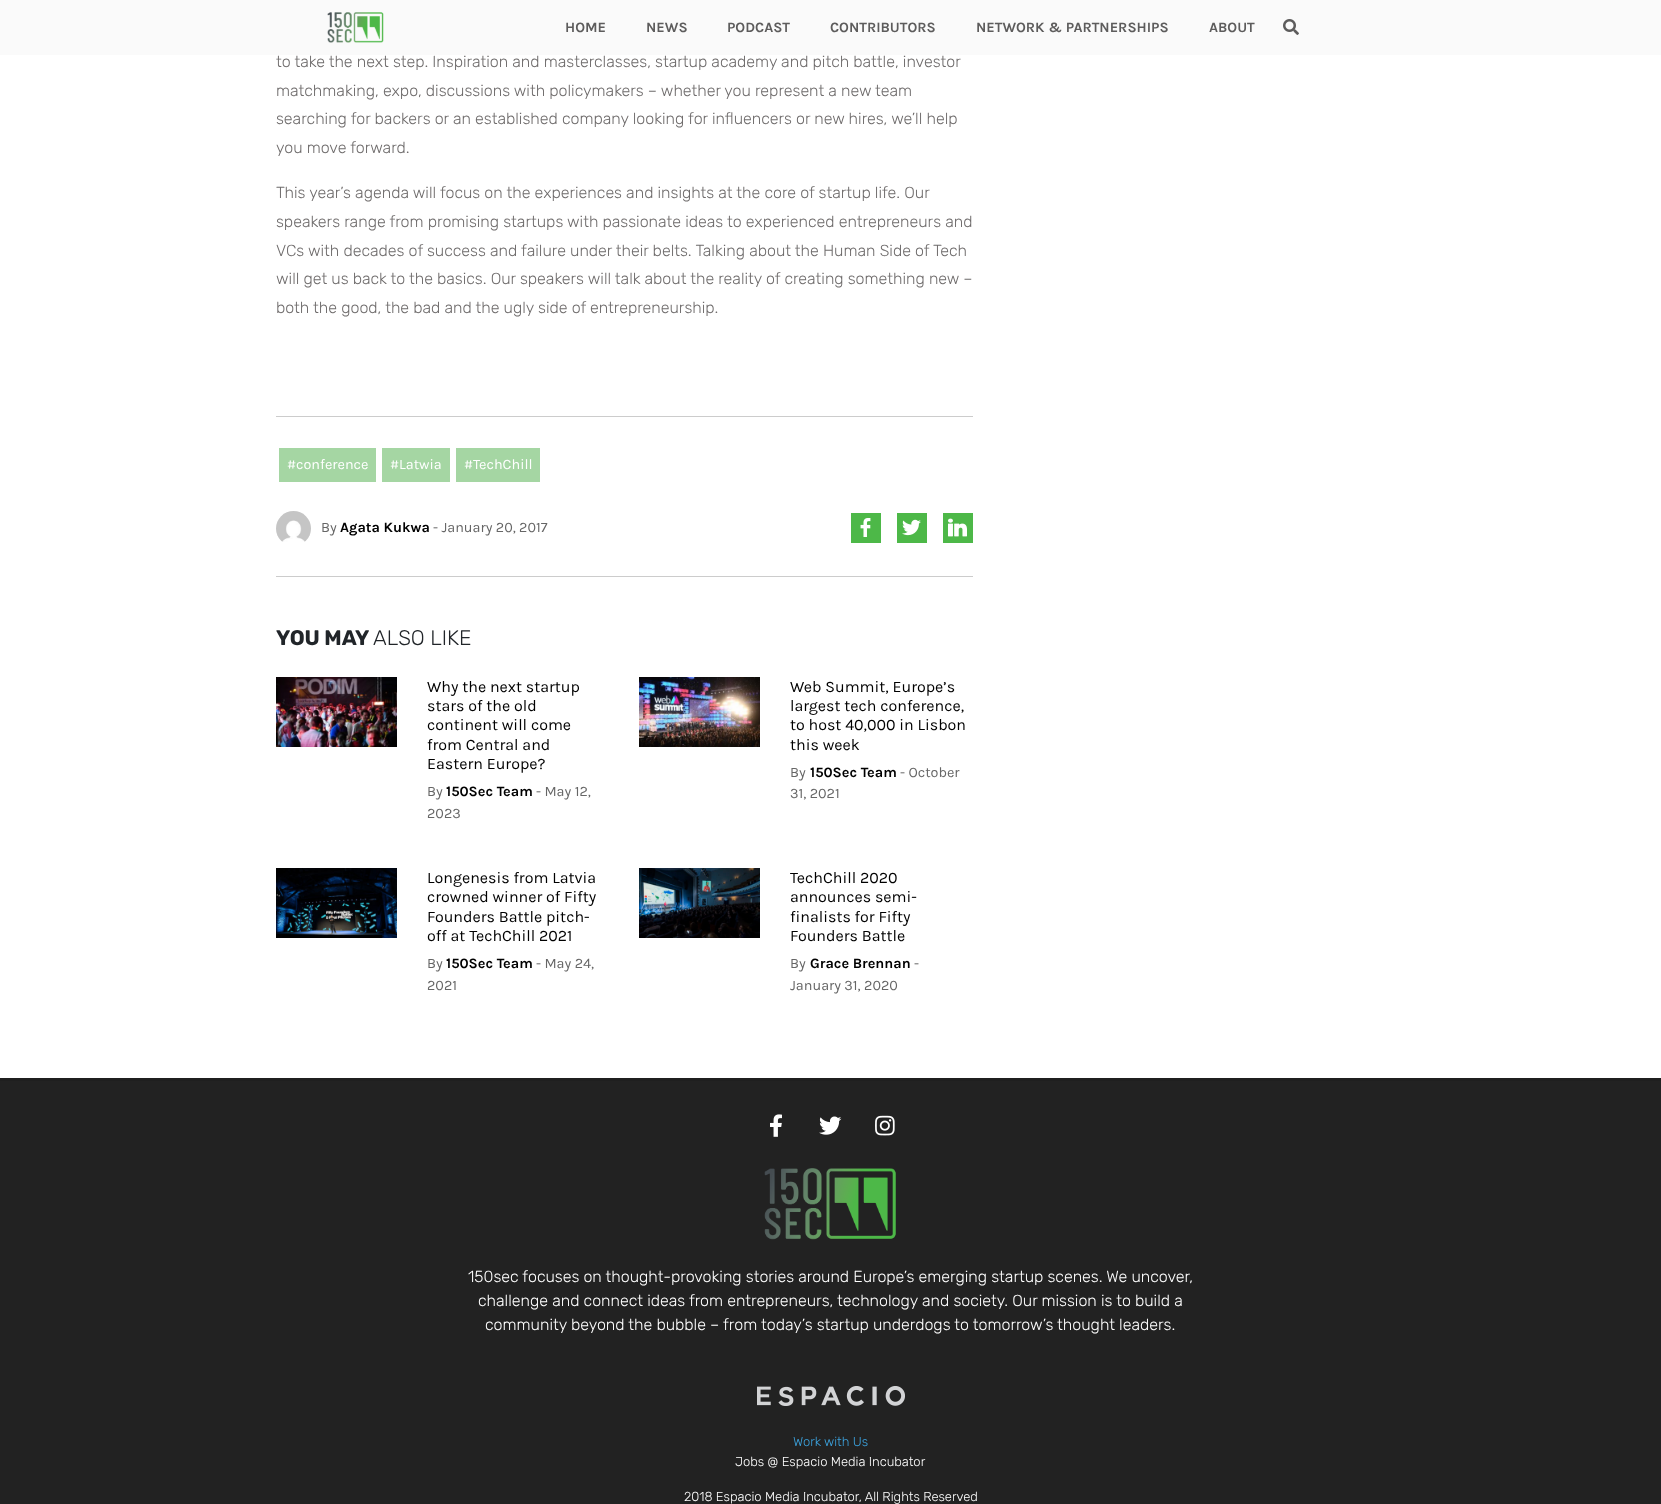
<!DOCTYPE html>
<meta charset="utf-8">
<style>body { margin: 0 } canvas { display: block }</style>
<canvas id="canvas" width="1661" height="1504"></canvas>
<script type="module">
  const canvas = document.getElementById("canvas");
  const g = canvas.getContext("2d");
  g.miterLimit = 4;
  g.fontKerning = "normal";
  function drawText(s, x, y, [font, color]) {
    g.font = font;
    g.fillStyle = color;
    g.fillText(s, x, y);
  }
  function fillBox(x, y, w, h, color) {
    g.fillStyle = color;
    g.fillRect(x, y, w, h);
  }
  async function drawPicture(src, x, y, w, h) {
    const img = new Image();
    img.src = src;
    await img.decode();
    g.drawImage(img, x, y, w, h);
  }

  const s1 = ["bold 14.4px Karla", "#5D5C5C"];
  const s2 = ["300 16px Rubik", "#6F6C6C"];
  const s3 = ["14.4px Karla", "#FFFFFF"];
  const s4 = ["14.4px Karla", "#666666"];
  const s5 = ["bold 14.4px Karla", "#000000"];
  const s6 = ["bold 21px Rubik", "#212529"];
  const s7 = ["300 21px Rubik", "#212529"];
  const s8 = ["16px Karla", "#000000"];
  const s9 = ["300 16px Rubik", "#FFFFFF"];
  const s10 = ["300 13px Rubik", "#3CA4E0"];
  const s11 = ["300 13px Rubik", "#FFFFFF"];

  fillBox(0, 0, 1661, 1504, "#FFFFFF");
  fillBox(0, 0, 1661, 55, "#FAFAFA");
  await drawPicture("pic1.png", 327, 12, 57, 31);
  drawText("HOME", 565, 32, s1);
  drawText("NEWS", 646, 32, s1);
  drawText("PODCAST", 727, 32, s1);
  drawText("CONTRIBUTORS", 830, 32, s1);
  drawText("NETWORK & PARTNERSHIPS", 976, 32, s1);
  drawText("ABOUT", 1209, 32, s1);
  await drawPicture("pic2.png", 1283, 19, 16, 16);
  drawText("to take the next step. Inspiration and masterclasses, startup academy and pitch battle, investor", 276, 67, s2);
  drawText("matchmaking, expo, discussions with policymakers – whether you represent a new team", 276, 96, s2);
  drawText("searching for backers or an established company looking for influencers or new hires, we’ll help", 276, 124, s2);
  drawText("you move forward.", 276, 153, s2);
  drawText("This year’s agenda will focus on the experiences and insights at the core of startup life. Our", 276, 198, s2);
  drawText("speakers range from promising startups with passionate ideas to experienced entrepreneurs and", 276, 227, s2);
  drawText("VCs with decades of success and failure under their belts. Talking about the Human Side of Tech", 276, 256, s2);
  drawText("will get us back to the basics. Our speakers will talk about the reality of creating something new –", 276, 284, s2);
  drawText("both the good, the bad and the ugly side of entrepreneurship.", 276, 313, s2);
  fillBox(276, 416, 697, 1, "#CCCCCC");
  fillBox(279, 448, 97, 34, "#A5D6A3");
  drawText("#conference", 287, 469, s3);
  fillBox(382, 448, 68, 34, "#A5D6A3");
  drawText("#Latwia", 390, 469, s3);
  fillBox(456, 448, 84, 34, "#A5D6A3");
  drawText("#TechChill", 464, 469, s3);
  await drawPicture("pic3.png", 276, 511, 35, 31);
  drawText("By", 321, 532, s4);
  drawText("Agata Kukwa", 340, 532, s5);
  drawText("- January 20, 2017", 433, 532, s4);
  fillBox(851, 513, 30, 30, "#4DB848");
  await drawPicture("pic4.png", 860, 518, 11, 19);
  fillBox(897, 513, 30, 30, "#4DB848");
  await drawPicture("pic5.png", 902, 519, 19, 17);
  fillBox(943, 513, 30, 30, "#4DB848");
  await drawPicture("pic6.png", 948, 518, 19, 19);
  fillBox(276, 576, 697, 1, "#CCCCCC");
  drawText("YOU MAY", 276, 645, s6);
  drawText("ALSO LIKE", 373, 645, s7);
  await drawPicture("pic7.png", 276, 677, 121, 70);
  drawText("Why the next startup", 427, 692, s8);
  drawText("stars of the old", 427, 711, s8);
  drawText("continent will come", 427, 730, s8);
  drawText("from Central and", 427, 750, s8);
  drawText("Eastern Europe?", 427, 769, s8);
  drawText("By", 427, 796, s4);
  drawText("150Sec Team", 446, 796, s5);
  drawText("- May 12,", 536, 796, s4);
  drawText("2023", 427, 818, s4);
  await drawPicture("pic8.png", 639, 677, 121, 70);
  drawText("Web Summit, Europe’s", 790, 692, s8);
  drawText("largest tech conference,", 790, 711, s8);
  drawText("to host 40,000 in Lisbon", 790, 730, s8);
  drawText("this week", 790, 750, s8);
  drawText("By", 790, 777, s4);
  drawText("150Sec Team", 810, 777, s5);
  drawText("- October", 900, 777, s4);
  drawText("31, 2021", 790, 798, s4);
  await drawPicture("pic9.png", 276, 868, 121, 70);
  drawText("Longenesis from Latvia", 427, 883, s8);
  drawText("crowned winner of Fifty", 427, 902, s8);
  drawText("Founders Battle pitch-", 427, 922, s8);
  drawText("off at TechChill 2021", 427, 941, s8);
  drawText("By", 427, 968, s4);
  drawText("150Sec Team", 446, 968, s5);
  drawText("- May 24,", 536, 968, s4);
  drawText("2021", 427, 990, s4);
  await drawPicture("pic10.png", 639, 868, 121, 70);
  drawText("TechChill 2020", 790, 883, s8);
  drawText("announces semi-", 790, 902, s8);
  drawText("finalists for Fifty", 790, 922, s8);
  drawText("Founders Battle", 790, 941, s8);
  drawText("By", 790, 968, s4);
  drawText("Grace Brennan", 810, 968, s5);
  drawText("-", 914, 968, s4);
  drawText("January 31, 2020", 790, 990, s4);
  fillBox(0, 1081, 1661, 423, "#222222");
  fillBox(0, 1078, 1661, 3, "#1F1F1F");
  await drawPicture("pic11.png", 770, 1114, 12, 23);
  await drawPicture("pic12.png", 819, 1116, 23, 19);
  await drawPicture("pic13.png", 875, 1115, 20, 21);
  await drawPicture("pic14.png", 764, 1168, 132, 72);
  drawText("150sec focuses on thought-provoking stories around Europe’s emerging startup scenes. We uncover,", 468, 1282, s9);
  drawText("challenge and connect ideas from entrepreneurs, technology and society. Our mission is to build a", 478, 1306, s9);
  drawText("community beyond the bubble – from today’s startup underdogs to tomorrow’s thought leaders.", 485, 1330, s9);
  await drawPicture("pic15.png", 757, 1386, 148, 20);
  drawText("Work with Us", 793, 1446, s10);
  drawText("Jobs @ Espacio Media Incubator", 735, 1466, s11);
  drawText("2018 Espacio Media Incubator, All Rights Reserved", 684, 1501, s11);
</script>
